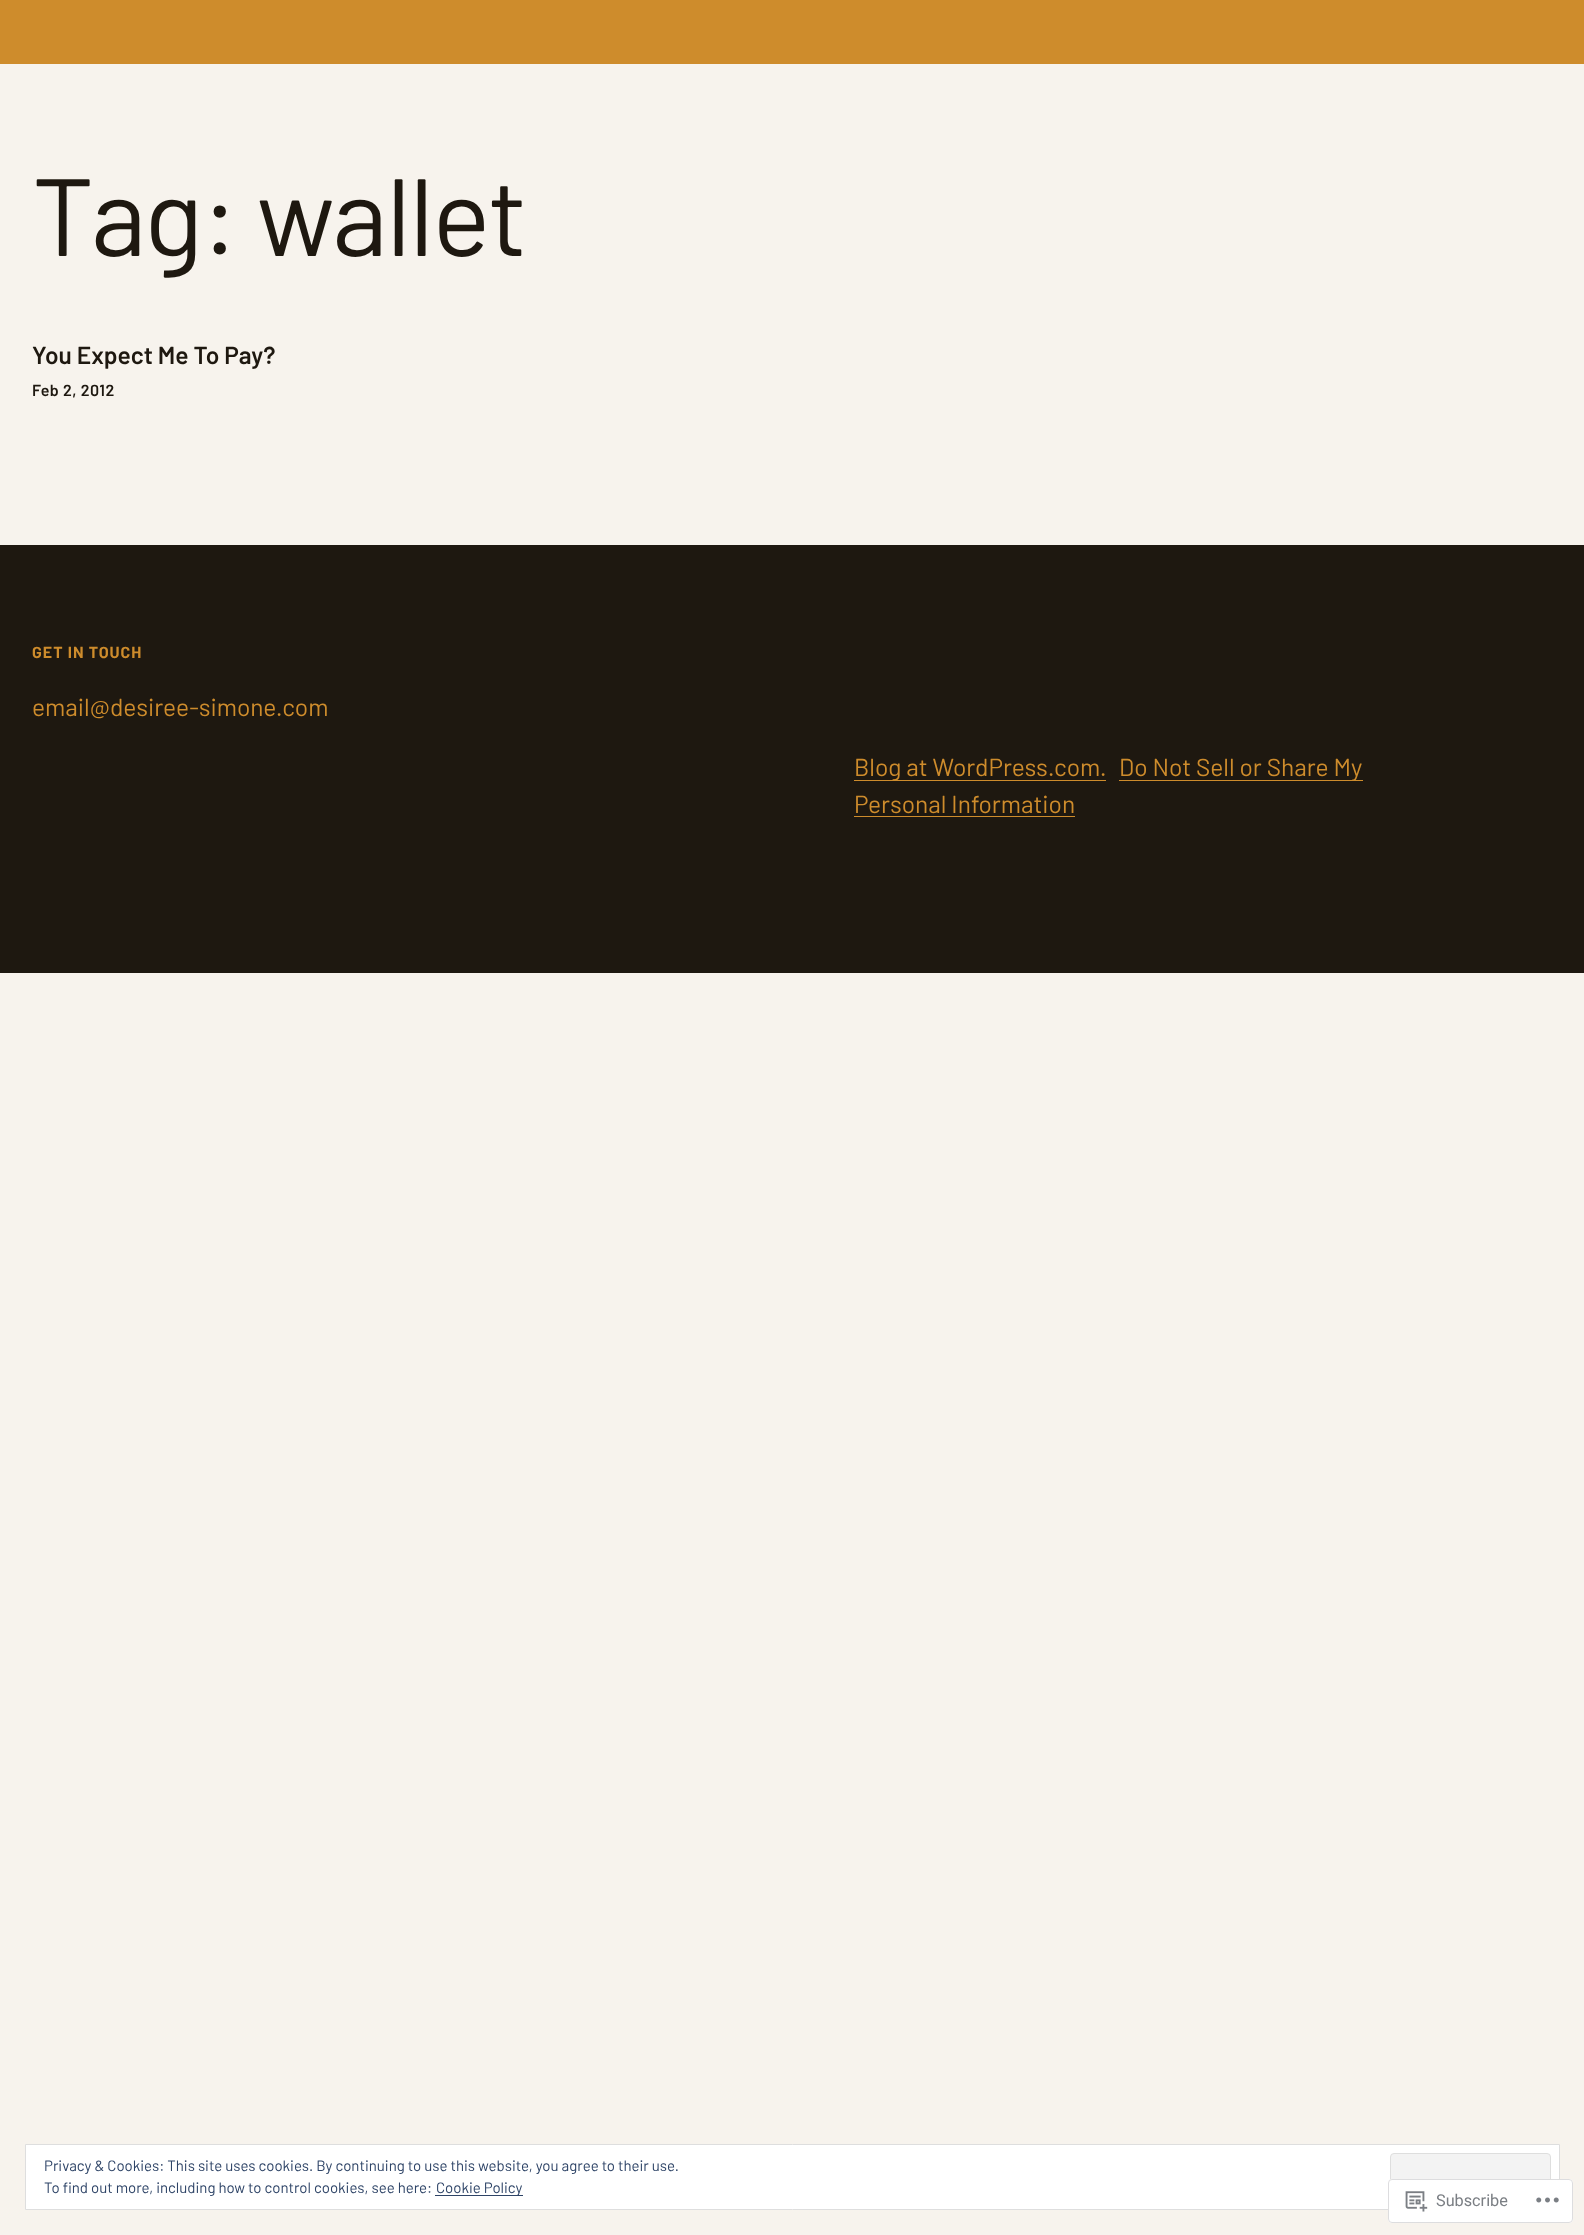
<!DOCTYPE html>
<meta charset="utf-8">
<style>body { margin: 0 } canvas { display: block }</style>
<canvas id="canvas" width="1584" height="2235"></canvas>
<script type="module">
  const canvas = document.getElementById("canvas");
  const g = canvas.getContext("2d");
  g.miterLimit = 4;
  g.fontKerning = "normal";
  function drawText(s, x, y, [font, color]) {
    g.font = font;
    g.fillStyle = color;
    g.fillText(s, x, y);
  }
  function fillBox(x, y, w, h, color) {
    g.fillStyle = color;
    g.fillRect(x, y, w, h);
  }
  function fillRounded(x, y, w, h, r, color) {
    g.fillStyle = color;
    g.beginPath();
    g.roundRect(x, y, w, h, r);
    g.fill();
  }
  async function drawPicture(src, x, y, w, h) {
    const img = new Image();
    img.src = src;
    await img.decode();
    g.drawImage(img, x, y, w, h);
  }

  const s1 = ["109.5px Barlow", "#1E1810"];
  const s2 = ["600 24.5px Barlow", "#1E1810"];
  const s3 = ["600 16px Barlow", "#1E1810"];
  const s4 = ["bold 16px Barlow", "#CE8C2C"];
  const s5 = ["24.5px Barlow", "#CE8C2C"];
  const s6 = ["15px Barlow", "#2E4467"];
  const s7 = ["16.25px Roboto", "#7B7F84"];

  fillBox(0, 0, 1584, 2235, "#F7F3ED");
  fillBox(0, 0, 1584, 64, "#CE8C2C");
  g.letterSpacing = "-2px";
  drawText("Tag: wallet", 32, 256, s1);
  g.letterSpacing = "0px";
  drawText("You Expect Me To Pay?", 32, 364, s2);
  g.letterSpacing = "0.5px";
  drawText("Feb 2, 2012", 32, 396, s3);
  fillBox(0, 545, 1584, 428, "#1E1810");
  g.letterSpacing = "1px";
  drawText("GET IN TOUCH", 32, 658, s4);
  g.letterSpacing = "0px";
  drawText("email@desiree-simone.com", 32, 716, s5);
  fillBox(854, 780, 252, 1, "#CE8C2C");
  drawText("Blog at WordPress.com.", 854, 776, s5);
  fillBox(1119, 780, 244, 1, "#CE8C2C");
  drawText("Do Not Sell or Share My", 1119, 776, s5);
  drawText("Personal Information", 854, 813, s5);
  fillBox(854, 816, 221, 1, "#CE8C2C");
  g.fillStyle = "#FFFFFF";
  g.beginPath();
  g.rect(25.5, 2144.5, 1534, 65);
  g.fill();
  g.strokeStyle = "#DEDEDE";
  g.stroke();
  drawText("Privacy & Cookies: This site uses cookies. By continuing to use this website, you agree to their use.", 44, 2171, s6);
  g.fillStyle = "#F3F3F3";
  g.beginPath();
  g.roundRect(1390.5, 2153.5, 160, 47, 3.5);
  g.fill();
  g.stroke();
  drawText("To find out more, including how to control cookies, see here:", 44, 2193, s6);
  fillBox(435, 2195, 88, 1, "#2E4467");
  drawText("Cookie Policy", 436, 2193, s6);
  fillRounded(1388, 2179, 185, 44, 4, "rgba(255, 255, 255, 0.98)");
  g.beginPath();
  g.roundRect(1388.5, 2179.5, 184, 43, 3.5);
  g.strokeStyle = "rgba(220, 220, 222, 0.98)";
  g.stroke();
  await drawPicture("pic1.png", 1405, 2191, 23, 21);
  drawText("Subscribe", 1436, 2206, s7);
  await drawPicture("pic2.png", 1536, 2197, 23, 6);
</script>
